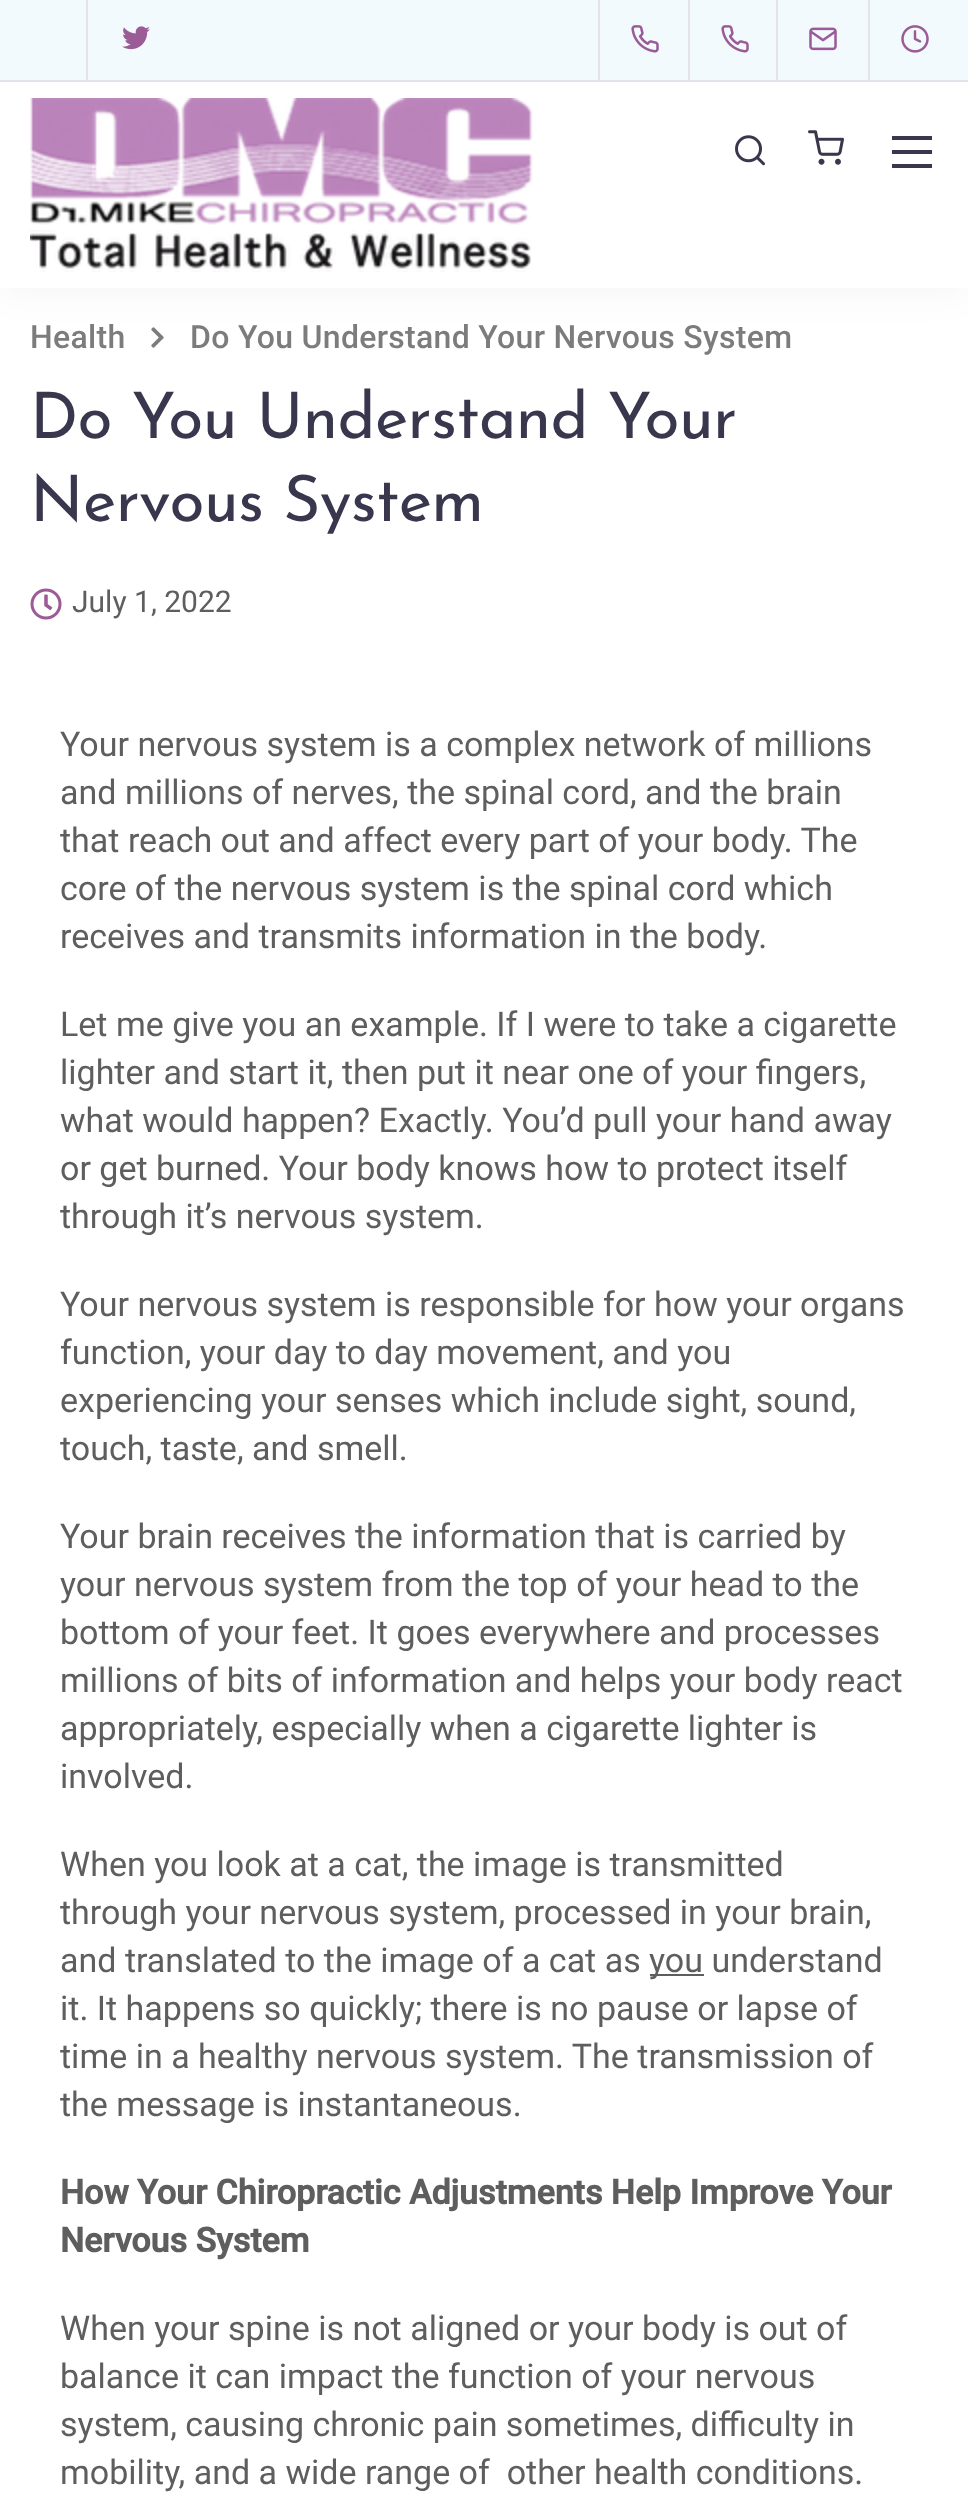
<!DOCTYPE html>
<meta charset="utf-8">
<style>body { margin: 0 } canvas { display: block }</style>
<canvas id="canvas" width="968" height="2508"></canvas>
<script type="module">
  const canvas = document.getElementById("canvas");
  const g = canvas.getContext("2d");
  g.miterLimit = 4;
  g.fontKerning = "normal";
  function drawText(s, x, y, [font, color]) {
    g.font = font;
    g.fillStyle = color;
    g.fillText(s, x, y);
  }
  function fillBox(x, y, w, h, color) {
    g.fillStyle = color;
    g.fillRect(x, y, w, h);
  }
  async function drawPicture(src, x, y, w, h) {
    const img = new Image();
    img.src = src;
    await img.decode();
    g.drawImage(img, x, y, w, h);
  }

  const s1 = ["500 32px Roboto", "#7C7C7C"];
  const s2 = ["100 64px Josefin Sans", "#39374D"];
  const s3 = ["30px Roboto", "#5E5E5E"];
  const s4 = ["34px Roboto", "#5E5E5E"];
  const s5 = ["bold 34px Roboto", "#5E5E5E"];

  fillBox(0, 0, 968, 2508, "#FFFFFF");
  await drawPicture("pic8.png", 151, 327, 13, 21);
  g.fillStyle = "rgba(0, 0, 0, 0.05)";
  g.filter = "blur(20px)";
  g.beginPath();
  g.rect(0, 0, 968, 288);
  g.fill();
  g.filter = "none";
  fillBox(0, 0, 968, 80, "#F2FAFD");
  fillBox(0, 80, 968, 2, "#E5E2EE");
  fillBox(86, 0, 2, 80, "#E5E2EE");
  await drawPicture("pic1.png", 122, 26, 28, 24);
  fillBox(598, 0, 2, 80, "#E5E2EE");
  fillBox(688, 0, 2, 80, "#E5E2EE");
  await drawPicture("pic2.png", 631, 25, 28, 28);
  fillBox(776, 0, 2, 80, "#E5E2EE");
  await drawPicture("pic2.png", 721, 25, 28, 28);
  fillBox(868, 0, 2, 80, "#E5E2EE");
  await drawPicture("pic3.png", 809, 27, 28, 24);
  await drawPicture("pic4.png", 901, 25, 28, 28);
  fillBox(0, 82, 968, 206, "#FFFFFF");
  await drawPicture("pic5.png", 30, 98, 503, 174);
  await drawPicture("pic6.png", 735, 135, 30, 31);
  await drawPicture("pic7.png", 808, 130, 36, 35);
  fillBox(892, 164, 40, 4, "#39364E");
  fillBox(892, 136, 40, 4, "#39364E");
  fillBox(892, 150, 40, 4, "#39364E");
  g.letterSpacing = "0.3px";
  drawText("Health", 30, 348, s1);
  drawText("Do You Understand Your Nervous System", 190, 348, s1);
  g.letterSpacing = "-0.6px";
  drawText("Do You Understand Your", 30, 438, s2);
  drawText("Nervous System", 30, 521, s2);
  await drawPicture("pic9.png", 30, 588, 32, 32);
  g.letterSpacing = "0px";
  drawText("July 1, 2022", 72, 612, s3);
  drawText("Your nervous system is a complex network of millions", 60, 756, s4);
  drawText("and millions of nerves, the spinal cord, and the brain", 60, 804, s4);
  drawText("that reach out and affect every part of your body. The", 60, 852, s4);
  drawText("core of the nervous system is the spinal cord which", 60, 900, s4);
  drawText("receives and transmits information in the body.", 60, 948, s4);
  drawText("Let me give you an example. If I were to take a cigarette", 60, 1036, s4);
  drawText("lighter and start it, then put it near one of your fingers,", 60, 1084, s4);
  drawText("what would happen? Exactly. You’d pull your hand away", 60, 1132, s4);
  drawText("or get burned. Your body knows how to protect itself", 60, 1180, s4);
  drawText("through it’s nervous system.", 60, 1228, s4);
  drawText("Your nervous system is responsible for how your organs", 60, 1316, s4);
  drawText("function, your day to day movement, and you", 60, 1364, s4);
  drawText("experiencing your senses which include sight, sound,", 60, 1412, s4);
  drawText("touch, taste, and smell.", 60, 1460, s4);
  drawText("Your brain receives the information that is carried by", 60, 1548, s4);
  drawText("your nervous system from the top of your head to the", 60, 1596, s4);
  drawText("bottom of your feet. It goes everywhere and processes", 60, 1644, s4);
  drawText("millions of bits of information and helps your body react", 60, 1692, s4);
  drawText("appropriately, especially when a cigarette lighter is", 60, 1740, s4);
  drawText("involved.", 60, 1788, s4);
  drawText("When you look at a cat, the image is transmitted", 60, 1876, s4);
  drawText("through your nervous system, processed in your brain,", 60, 1924, s4);
  drawText("and translated to the image of a cat as", 60, 1972, s4);
  fillBox(650, 1974, 54, 2, "#5E5E5E");
  drawText("you understand", 649, 1972, s4);
  drawText("it. It happens so quickly; there is no pause or lapse of", 60, 2020, s4);
  drawText("time in a healthy nervous system. The transmission of", 60, 2068, s4);
  drawText("the message is instantaneous.", 60, 2116, s4);
  drawText("How Your Chiropractic Adjustments Help Improve Your", 60, 2204, s5);
  drawText("Nervous System", 60, 2252, s5);
  drawText("When your spine is not aligned or your body is out of", 60, 2340, s4);
  drawText("balance it can impact the function of your nervous", 60, 2388, s4);
  drawText("system, causing chronic pain sometimes, difficulty in", 60, 2436, s4);
  drawText("mobility, and a wide range of  other health conditions.", 60, 2484, s4);
</script>
